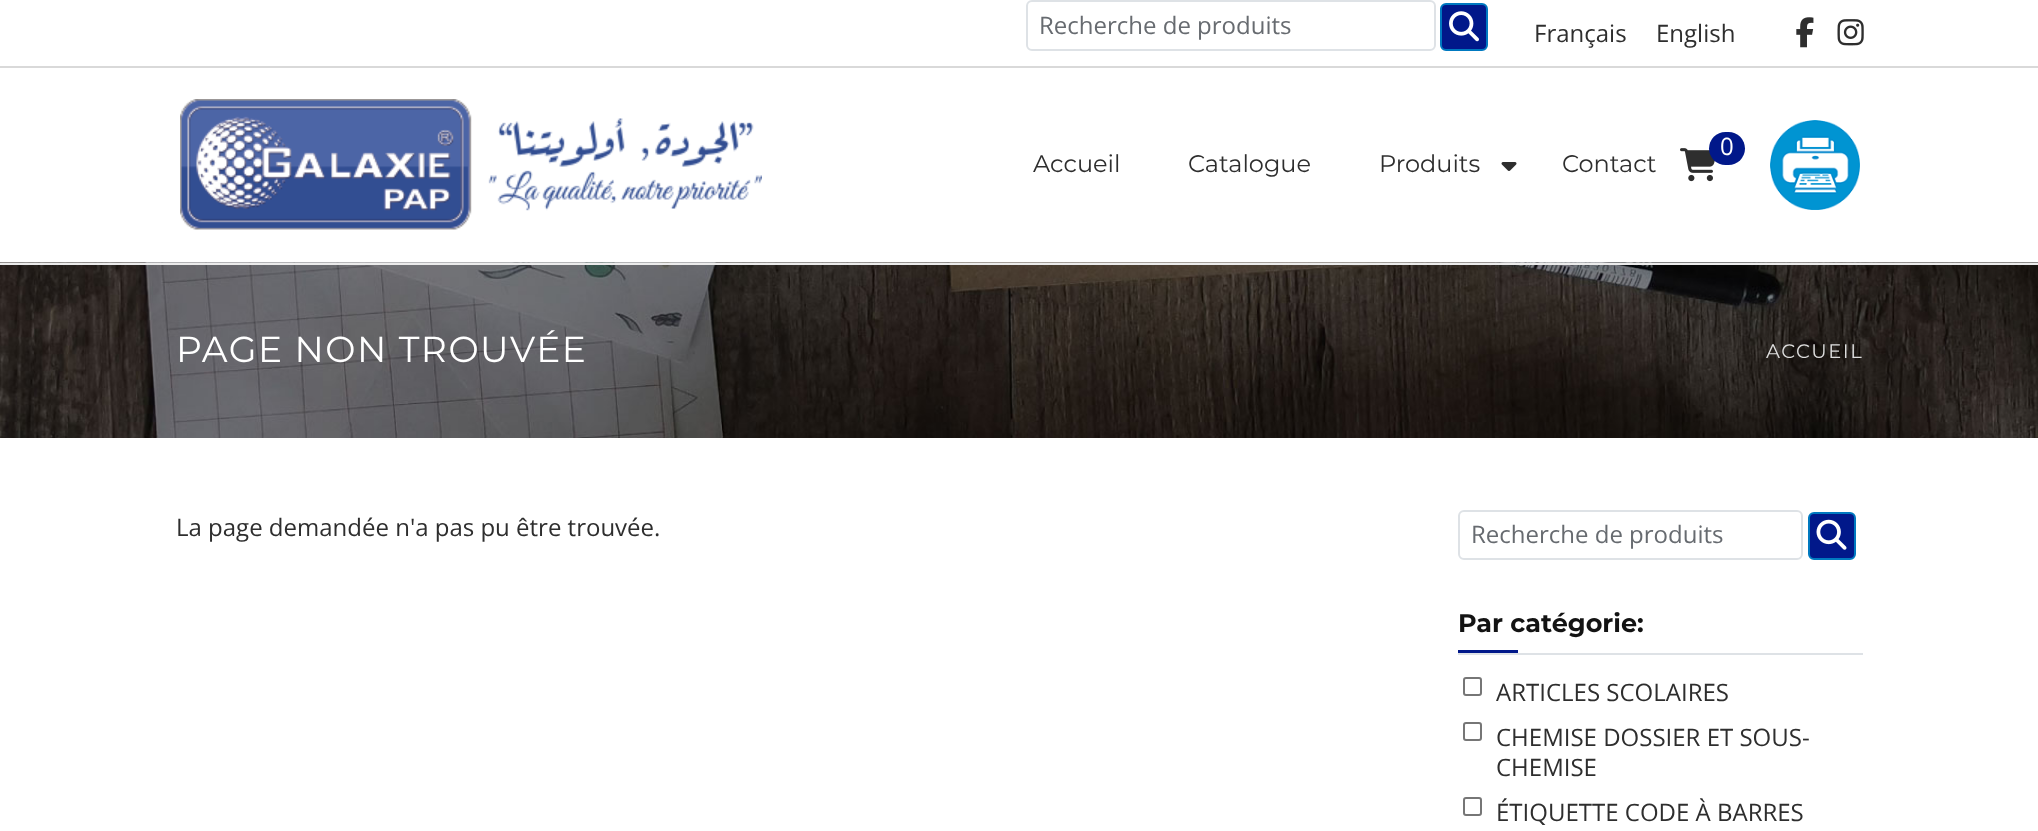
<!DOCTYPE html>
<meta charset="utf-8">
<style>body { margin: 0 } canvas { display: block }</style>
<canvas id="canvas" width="2038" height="831"></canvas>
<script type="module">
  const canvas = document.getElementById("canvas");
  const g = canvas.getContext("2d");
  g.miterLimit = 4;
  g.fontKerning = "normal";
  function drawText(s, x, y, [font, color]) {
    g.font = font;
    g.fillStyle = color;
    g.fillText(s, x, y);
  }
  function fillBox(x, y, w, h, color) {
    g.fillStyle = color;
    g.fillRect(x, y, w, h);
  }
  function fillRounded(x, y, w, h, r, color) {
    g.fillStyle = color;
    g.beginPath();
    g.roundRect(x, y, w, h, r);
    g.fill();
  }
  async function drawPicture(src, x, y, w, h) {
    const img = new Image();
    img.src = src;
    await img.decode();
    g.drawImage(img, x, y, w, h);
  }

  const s1 = ["24px Open Sans", "#676B70"];
  const s2 = ["24px Open Sans", "#2E2E2E"];
  const s3 = ["24px Open Sans", "#FFFFFF"];
  const s4 = ["24px Montserrat", "#2E2E2E"];
  const s5 = ["36px Montserrat", "#FFFFFF"];
  const s6 = ["19.5px Montserrat", "#DDDDDD"];
  const s7 = ["bold 25.5px Montserrat", "#131313"];

  fillBox(0, 0, 2038, 831, "#FFFFFF");
  g.beginPath();
  g.roundRect(1027, 1, 408, 49, 5);
  g.strokeStyle = "#DEE2E6";
  g.lineWidth = 2;
  g.stroke();
  drawText("Recherche de produits", 1039, 34, s1);
  g.fillStyle = "#01188A";
  g.beginPath();
  g.roundRect(1441, 4, 46, 46, 5);
  g.fill();
  g.strokeStyle = "#0079C0";
  g.stroke();
  await drawPicture("pic1.png", 1449, 11, 30, 31);
  drawText("Français", 1534, 42, s2);
  drawText("English", 1656, 42, s2);
  await drawPicture("pic2.png", 1796, 17, 18, 31);
  await drawPicture("pic3.png", 1837, 19, 27, 27);
  fillBox(0, 66, 2038, 2, "#D9D9D9");
  await drawPicture("pic4.png", 180, 99, 582, 131);
  await drawPicture("pic5.png", 1680, 148, 35, 34);
  fillRounded(1709, 132, 36, 33, 16.5, "#01188A");
  drawText("0", 1720, 155, s3);
  await drawPicture("pic6.png", 1770, 120, 90, 90);
  drawText("Accueil", 1033, 172, s4);
  drawText("Catalogue", 1188, 172, s4);
  drawText("Produits", 1379, 172, s4);
  await drawPicture("pic7.png", 1501, 162, 16, 9);
  drawText("Contact", 1562, 172, s4);
  await drawPicture("pic8.png", 0, 262, 2038, 176);
  fillBox(0, 263, 2038, 2, "#EBEBEB");
  g.letterSpacing = "1.5px";
  drawText("PAGE NON TROUVÉE", 176, 362, s5);
  drawText("ACCUEIL", 1766, 358, s6);
  g.letterSpacing = "0px";
  drawText("La page demandée n'a pas pu être trouvée.", 176, 536, s2);
  g.beginPath();
  g.roundRect(1459, 511, 343, 48, 5);
  g.strokeStyle = "#DEE2E6";
  g.stroke();
  drawText("Recherche de produits", 1471, 543, s1);
  g.fillStyle = "#01188A";
  g.beginPath();
  g.roundRect(1809, 513, 46, 46, 5);
  g.fill();
  g.strokeStyle = "#0079C0";
  g.stroke();
  await drawPicture("pic9.png", 1816, 519, 31, 31);
  fillBox(1458, 653, 405, 2, "#DEE2E6");
  drawText("Par catégorie:", 1458, 632, s7);
  fillBox(1458, 650, 60, 3, "#01188A");
  g.beginPath();
  g.roundRect(1464, 678, 17, 17, 2);
  g.strokeStyle = "#767676";
  g.stroke();
  drawText("ARTICLES SCOLAIRES", 1496, 701, s2);
  g.beginPath();
  g.roundRect(1464, 723, 17, 17, 2);
  g.stroke();
  drawText("CHEMISE DOSSIER ET SOUS-", 1496, 746, s2);
  drawText("CHEMISE", 1496, 776, s2);
  g.beginPath();
  g.roundRect(1464, 798, 17, 17, 2);
  g.stroke();
  drawText("ÉTIQUETTE CODE À BARRES", 1496, 821, s2);
</script>
